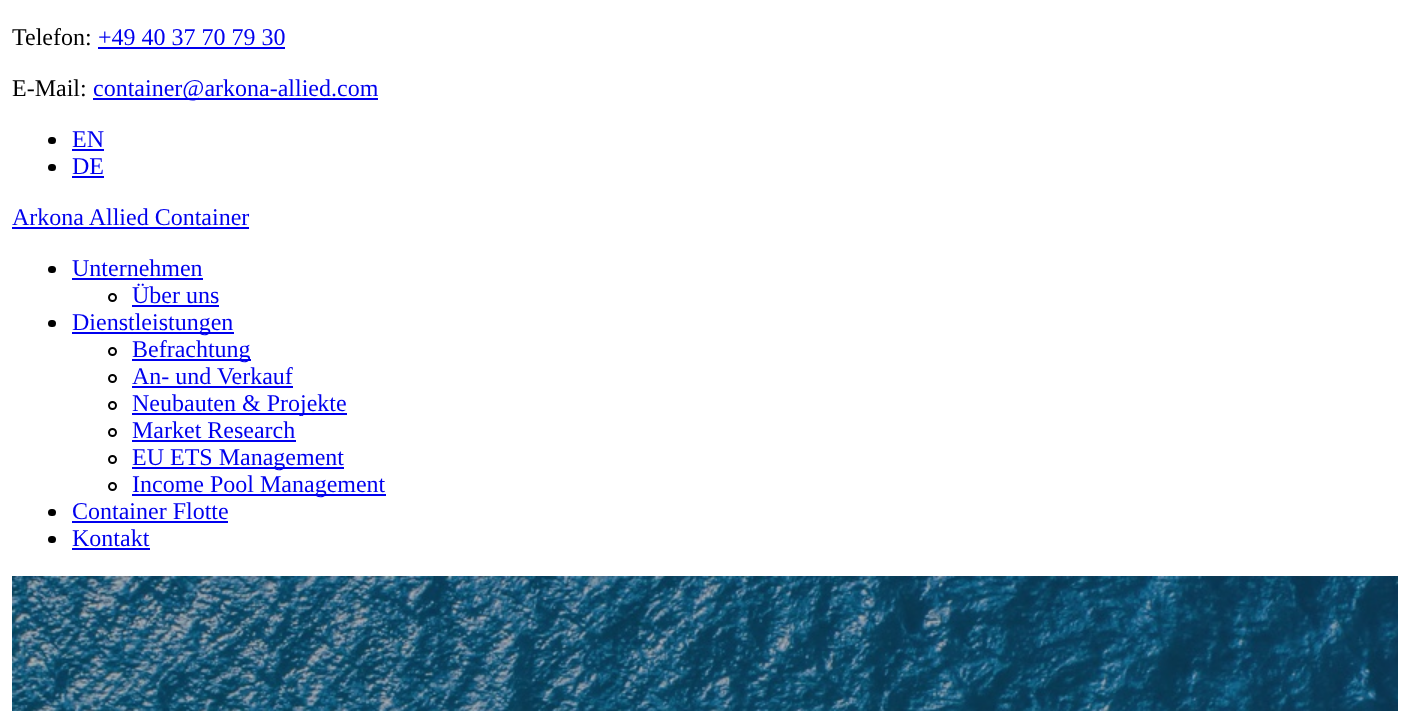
<!DOCTYPE html>
<meta charset="utf-8">
<style>body { margin: 0 } canvas { display: block }</style>
<canvas id="canvas" width="1409" height="711"></canvas>
<script type="module">
  const canvas = document.getElementById("canvas");
  const g = canvas.getContext("2d");
  g.miterLimit = 4;
  g.fontKerning = "normal";
  function drawText(s, x, y, [font, color]) {
    g.font = font;
    g.fillStyle = color;
    g.fillText(s, x, y);
  }
  function fillBox(x, y, w, h, color) {
    g.fillStyle = color;
    g.fillRect(x, y, w, h);
  }
  function fillRounded(x, y, w, h, r, color) {
    g.fillStyle = color;
    g.beginPath();
    g.roundRect(x, y, w, h, r);
    g.fill();
  }
  async function drawPicture(src, x, y, w, h) {
    const img = new Image();
    img.src = src;
    await img.decode();
    g.drawImage(img, x, y, w, h);
  }

  const s1 = ["24px Liberation Serif", "#000000"];
  const s2 = ["24px Liberation Serif", "#0000EE"];

  fillBox(0, 0, 1409, 711, "#FFFFFF");
  drawText("Telefon:", 12, 45, s1);
  drawText("+49 40 37 70 79 30", 98, 45, s2);
  fillBox(98, 47, 187, 2, "#0000EE");
  drawText("E-Mail:", 12, 96, s1);
  fillBox(93, 98, 285, 2, "#0000EE");
  drawText("container@arkona-allied.com", 93, 96, s2);
  fillRounded(48, 137, 8, 7, 3.5, "#000000");
  drawText("EN", 72, 147, s2);
  fillBox(72, 149, 32, 2, "#0000EE");
  fillRounded(48, 164, 8, 7, 3.5, "#000000");
  drawText("DE", 72, 174, s2);
  fillBox(72, 176, 32, 2, "#0000EE");
  drawText("Arkona Allied Container", 12, 225, s2);
  fillBox(12, 227, 237, 2, "#0000EE");
  fillRounded(48, 266, 8, 7, 3.5, "#000000");
  drawText("Unternehmen", 72, 276, s2);
  fillBox(72, 278, 131, 2, "#0000EE");
  g.beginPath();
  g.arc(112.5, 297.5, 3.5, 0, Math.PI * 2);
  g.strokeStyle = "#000000";
  g.lineWidth = 2;
  g.stroke();
  drawText("Über uns", 132, 303, s2);
  fillBox(132, 305, 87, 2, "#0000EE");
  fillRounded(48, 320, 8, 7, 3.5, "#000000");
  fillBox(72, 332, 162, 2, "#0000EE");
  drawText("Dienstleistungen", 72, 330, s2);
  g.beginPath();
  g.arc(112.5, 351.5, 3.5, 0, Math.PI * 2);
  g.stroke();
  fillBox(132, 359, 119, 2, "#0000EE");
  drawText("Befrachtung", 132, 357, s2);
  g.beginPath();
  g.arc(112.5, 378.5, 3.5, 0, Math.PI * 2);
  g.stroke();
  drawText("An- und Verkauf", 132, 384, s2);
  fillBox(132, 386, 161, 2, "#0000EE");
  g.beginPath();
  g.arc(112.5, 405.5, 3.5, 0, Math.PI * 2);
  g.stroke();
  fillBox(132, 413, 215, 2, "#0000EE");
  drawText("Neubauten & Projekte", 132, 411, s2);
  g.beginPath();
  g.arc(112.5, 432.5, 3.5, 0, Math.PI * 2);
  g.stroke();
  drawText("Market Research", 132, 438, s2);
  fillBox(132, 440, 164, 2, "#0000EE");
  g.beginPath();
  g.arc(112.5, 459.5, 3.5, 0, Math.PI * 2);
  g.stroke();
  fillBox(132, 467, 212, 2, "#0000EE");
  drawText("EU ETS Management", 132, 465, s2);
  g.beginPath();
  g.arc(112.5, 486.5, 3.5, 0, Math.PI * 2);
  g.stroke();
  fillBox(132, 494, 254, 2, "#0000EE");
  drawText("Income Pool Management", 132, 492, s2);
  fillRounded(48, 509, 8, 7, 3.5, "#000000");
  drawText("Container Flotte", 72, 519, s2);
  fillBox(72, 521, 156, 2, "#0000EE");
  fillRounded(48, 536, 8, 7, 3.5, "#000000");
  drawText("Kontakt", 72, 546, s2);
  fillBox(72, 548, 78, 2, "#0000EE");
  await drawPicture("pic1.png", 12, 576, 1386, 135);
</script>
